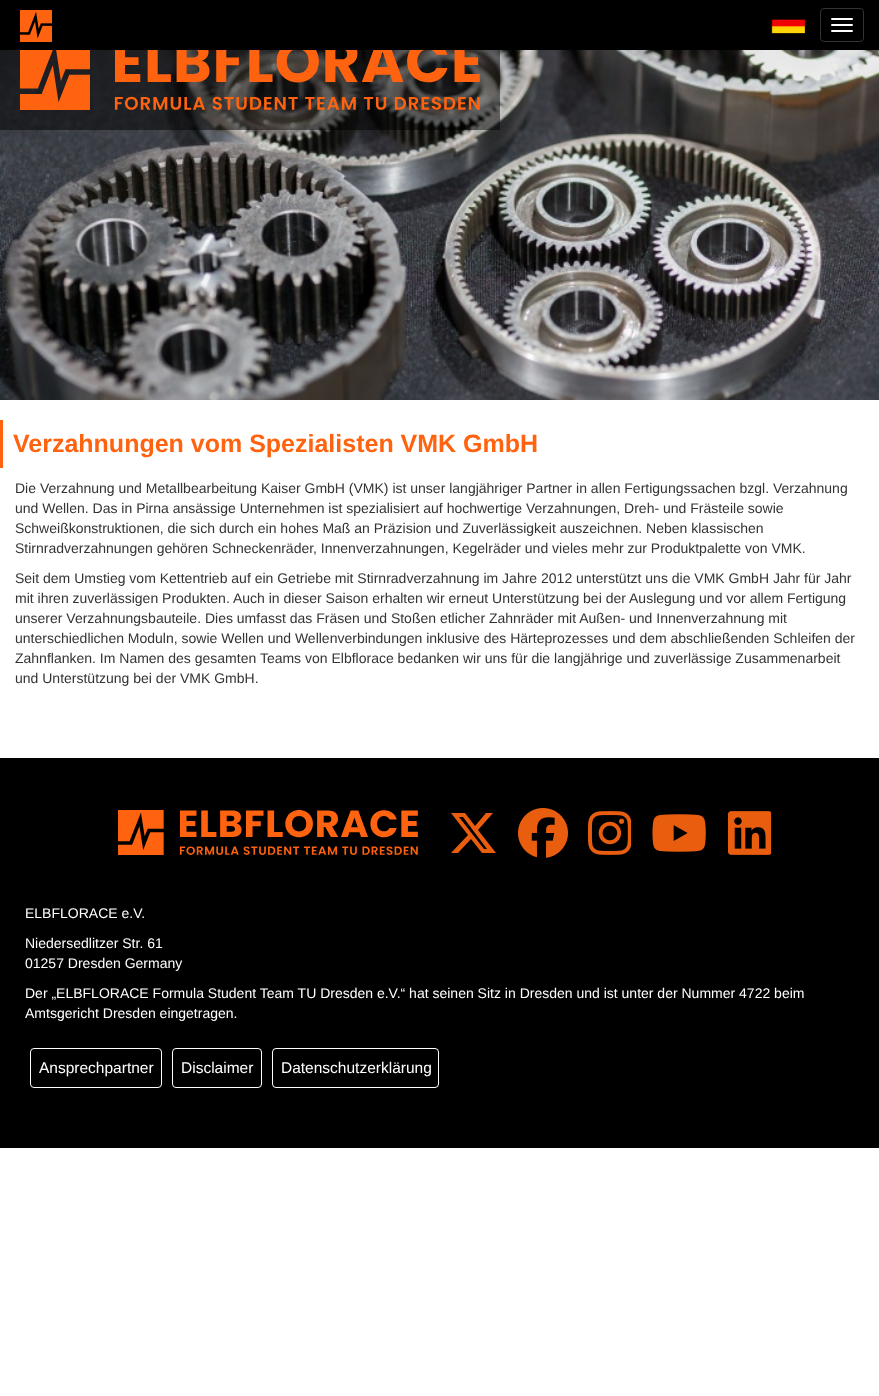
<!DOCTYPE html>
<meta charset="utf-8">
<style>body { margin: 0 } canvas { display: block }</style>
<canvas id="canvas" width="879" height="1396"></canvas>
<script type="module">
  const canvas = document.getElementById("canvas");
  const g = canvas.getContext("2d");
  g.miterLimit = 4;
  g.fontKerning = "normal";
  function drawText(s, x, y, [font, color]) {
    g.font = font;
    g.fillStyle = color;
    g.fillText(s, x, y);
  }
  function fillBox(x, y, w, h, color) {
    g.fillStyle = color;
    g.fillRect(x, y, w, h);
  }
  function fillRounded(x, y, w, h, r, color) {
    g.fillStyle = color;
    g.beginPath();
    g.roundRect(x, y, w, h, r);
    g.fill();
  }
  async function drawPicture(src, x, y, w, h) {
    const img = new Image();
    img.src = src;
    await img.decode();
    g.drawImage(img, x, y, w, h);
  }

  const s1 = ["bold 25px Liberation Sans", "#FF630F"];
  const s2 = ["14px Liberation Sans", "#333333"];
  const s3 = ["14px Liberation Sans", "#FFFFFF"];
  const s4 = ["15.5px Liberation Sans", "#FFFFFF"];

  fillBox(0, 0, 879, 1396, "#FFFFFF");
  fillBox(0, 0, 879, 50, "#000000");
  await drawPicture("pic1.png", 20, 10, 32, 32);
  await drawPicture("pic2.png", 771, 19, 34, 15);
  g.beginPath();
  g.roundRect(820.5, 8.5, 43, 33, 3.5);
  g.strokeStyle = "#333333";
  g.stroke();
  fillRounded(831, 18, 22, 2, 1, "#FFFFFF");
  fillRounded(831, 24, 22, 2, 1, "#FFFFFF");
  fillRounded(831, 30, 22, 2, 1, "#FFFFFF");
  await drawPicture("pic3.png", 0, 50, 879, 350);
  fillBox(0, 50, 500, 80, "rgba(0, 0, 0, 0.5)");
  await drawPicture("pic4.png", 20, 50, 460, 60);
  fillBox(0, 420, 3, 48, "#FF630F");
  drawText("Verzahnungen vom Spezialisten VMK GmbH", 13, 452, s1);
  drawText("Die Verzahnung und Metallbearbeitung Kaiser GmbH (VMK) ist unser langjähriger Partner in allen Fertigungssachen bzgl. Verzahnung", 15, 493, s2);
  drawText("und Wellen. Das in Pirna ansässige Unternehmen ist spezialisiert auf hochwertige Verzahnungen, Dreh- und Frästeile sowie", 15, 513, s2);
  drawText("Schweißkonstruktionen, die sich durch ein hohes Maß an Präzision und Zuverlässigkeit auszeichnen. Neben klassischen", 15, 533, s2);
  drawText("Stirnradverzahnungen gehören Schneckenräder, Innenverzahnungen, Kegelräder und vieles mehr zur Produktpalette von VMK.", 15, 553, s2);
  drawText("Seit dem Umstieg vom Kettentrieb auf ein Getriebe mit Stirnradverzahnung im Jahre 2012 unterstützt uns die VMK GmbH Jahr für Jahr", 15, 583, s2);
  drawText("mit ihren zuverlässigen Produkten. Auch in dieser Saison erhalten wir erneut Unterstützung bei der Auslegung und vor allem Fertigung", 15, 603, s2);
  drawText("unserer Verzahnungsbauteile. Dies umfasst das Fräsen und Stoßen etlicher Zahnräder mit Außen- und Innenverzahnung mit", 15, 623, s2);
  drawText("unterschiedlichen Moduln, sowie Wellen und Wellenverbindungen inklusive des Härteprozesses und dem abschließenden Schleifen der", 15, 643, s2);
  drawText("Zahnflanken. Im Namen des gesamten Teams von Elbflorace bedanken wir uns für die langjährige und zuverlässige Zusammenarbeit", 15, 663, s2);
  drawText("und Unterstützung bei der VMK GmbH.", 15, 683, s2);
  fillBox(0, 758, 879, 390, "#000000");
  await drawPicture("pic5.png", 118, 810, 300, 45);
  g.fillStyle = "#E95D0F";
  g.beginPath();
  g.moveTo(486, 813);
  g.lineTo(493, 813);
  g.lineTo(478, 830);
  g.lineTo(496, 853);
  g.lineTo(482, 853);
  g.lineTo(471, 839);
  g.lineTo(458, 853);
  g.lineTo(451, 853);
  g.lineTo(468, 835);
  g.lineTo(451, 813);
  g.lineTo(465, 813);
  g.lineTo(475, 826);
  g.closePath();
  g.moveTo(484, 849);
  g.lineTo(487, 849);
  g.lineTo(463, 817);
  g.lineTo(459, 817);
  g.closePath();
  g.fill();
  await drawPicture("pic6.png", 518, 808, 50, 50);
  await drawPicture("pic7.png", 588, 811, 43, 44);
  await drawPicture("pic8.png", 652, 814, 54, 38);
  await drawPicture("pic9.png", 728, 811, 43, 44);
  drawText("ELBFLORACE e.V.", 25, 918, s3);
  drawText("Niedersedlitzer Str. 61", 25, 948, s3);
  drawText("01257 Dresden Germany", 25, 968, s3);
  drawText("Der „ELBFLORACE Formula Student Team TU Dresden e.V.“ hat seinen Sitz in Dresden und ist unter der Nummer 4722 beim", 25, 998, s3);
  drawText("Amtsgericht Dresden eingetragen.", 25, 1018, s3);
  g.beginPath();
  g.roundRect(30.5, 1048.5, 131, 39, 3.5);
  g.strokeStyle = "#FFFFFF";
  g.stroke();
  drawText("Ansprechpartner", 39, 1073, s4);
  g.beginPath();
  g.roundRect(172.5, 1048.5, 89, 39, 3.5);
  g.stroke();
  drawText("Disclaimer", 181, 1073, s4);
  g.beginPath();
  g.roundRect(272.5, 1048.5, 166, 39, 3.5);
  g.stroke();
  drawText("Datenschutzerklärung", 281, 1073, s4);
</script>
